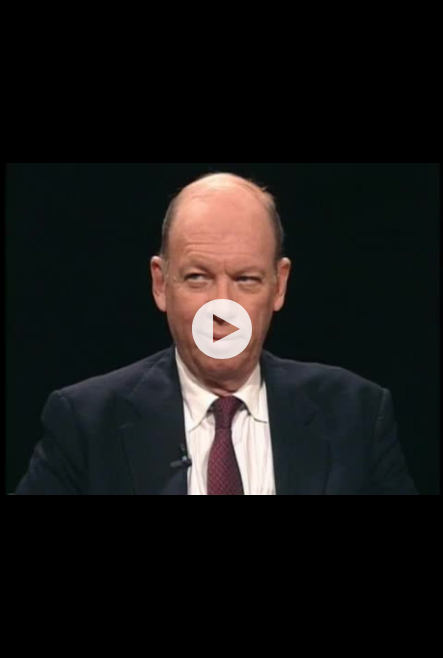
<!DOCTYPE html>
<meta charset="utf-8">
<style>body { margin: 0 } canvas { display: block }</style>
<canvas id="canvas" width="443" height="658"></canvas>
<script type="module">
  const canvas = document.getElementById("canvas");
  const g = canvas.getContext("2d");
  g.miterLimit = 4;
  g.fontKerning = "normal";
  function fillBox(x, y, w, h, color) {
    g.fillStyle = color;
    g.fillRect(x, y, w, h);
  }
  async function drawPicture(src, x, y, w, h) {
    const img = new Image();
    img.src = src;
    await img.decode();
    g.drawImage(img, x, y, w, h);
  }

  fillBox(0, 0, 443, 658, "#000000");
  await drawPicture("pic1.png", 4, 163, 439, 332);
  g.fillStyle = "rgba(255, 255, 255, 0.8)";
  g.beginPath();
  g.moveTo(222, 299);
  g.bezierCurveTo(205, 299, 192, 312, 192, 329);
  g.bezierCurveTo(192, 346, 205, 359, 222, 359);
  g.bezierCurveTo(239, 359, 252, 346, 252, 329);
  g.bezierCurveTo(252, 312, 239, 299, 222, 299);
  g.closePath();
  g.moveTo(213, 343);
  g.lineTo(213, 314);
  g.lineTo(240, 329);
  g.closePath();
  g.fill();
</script>
